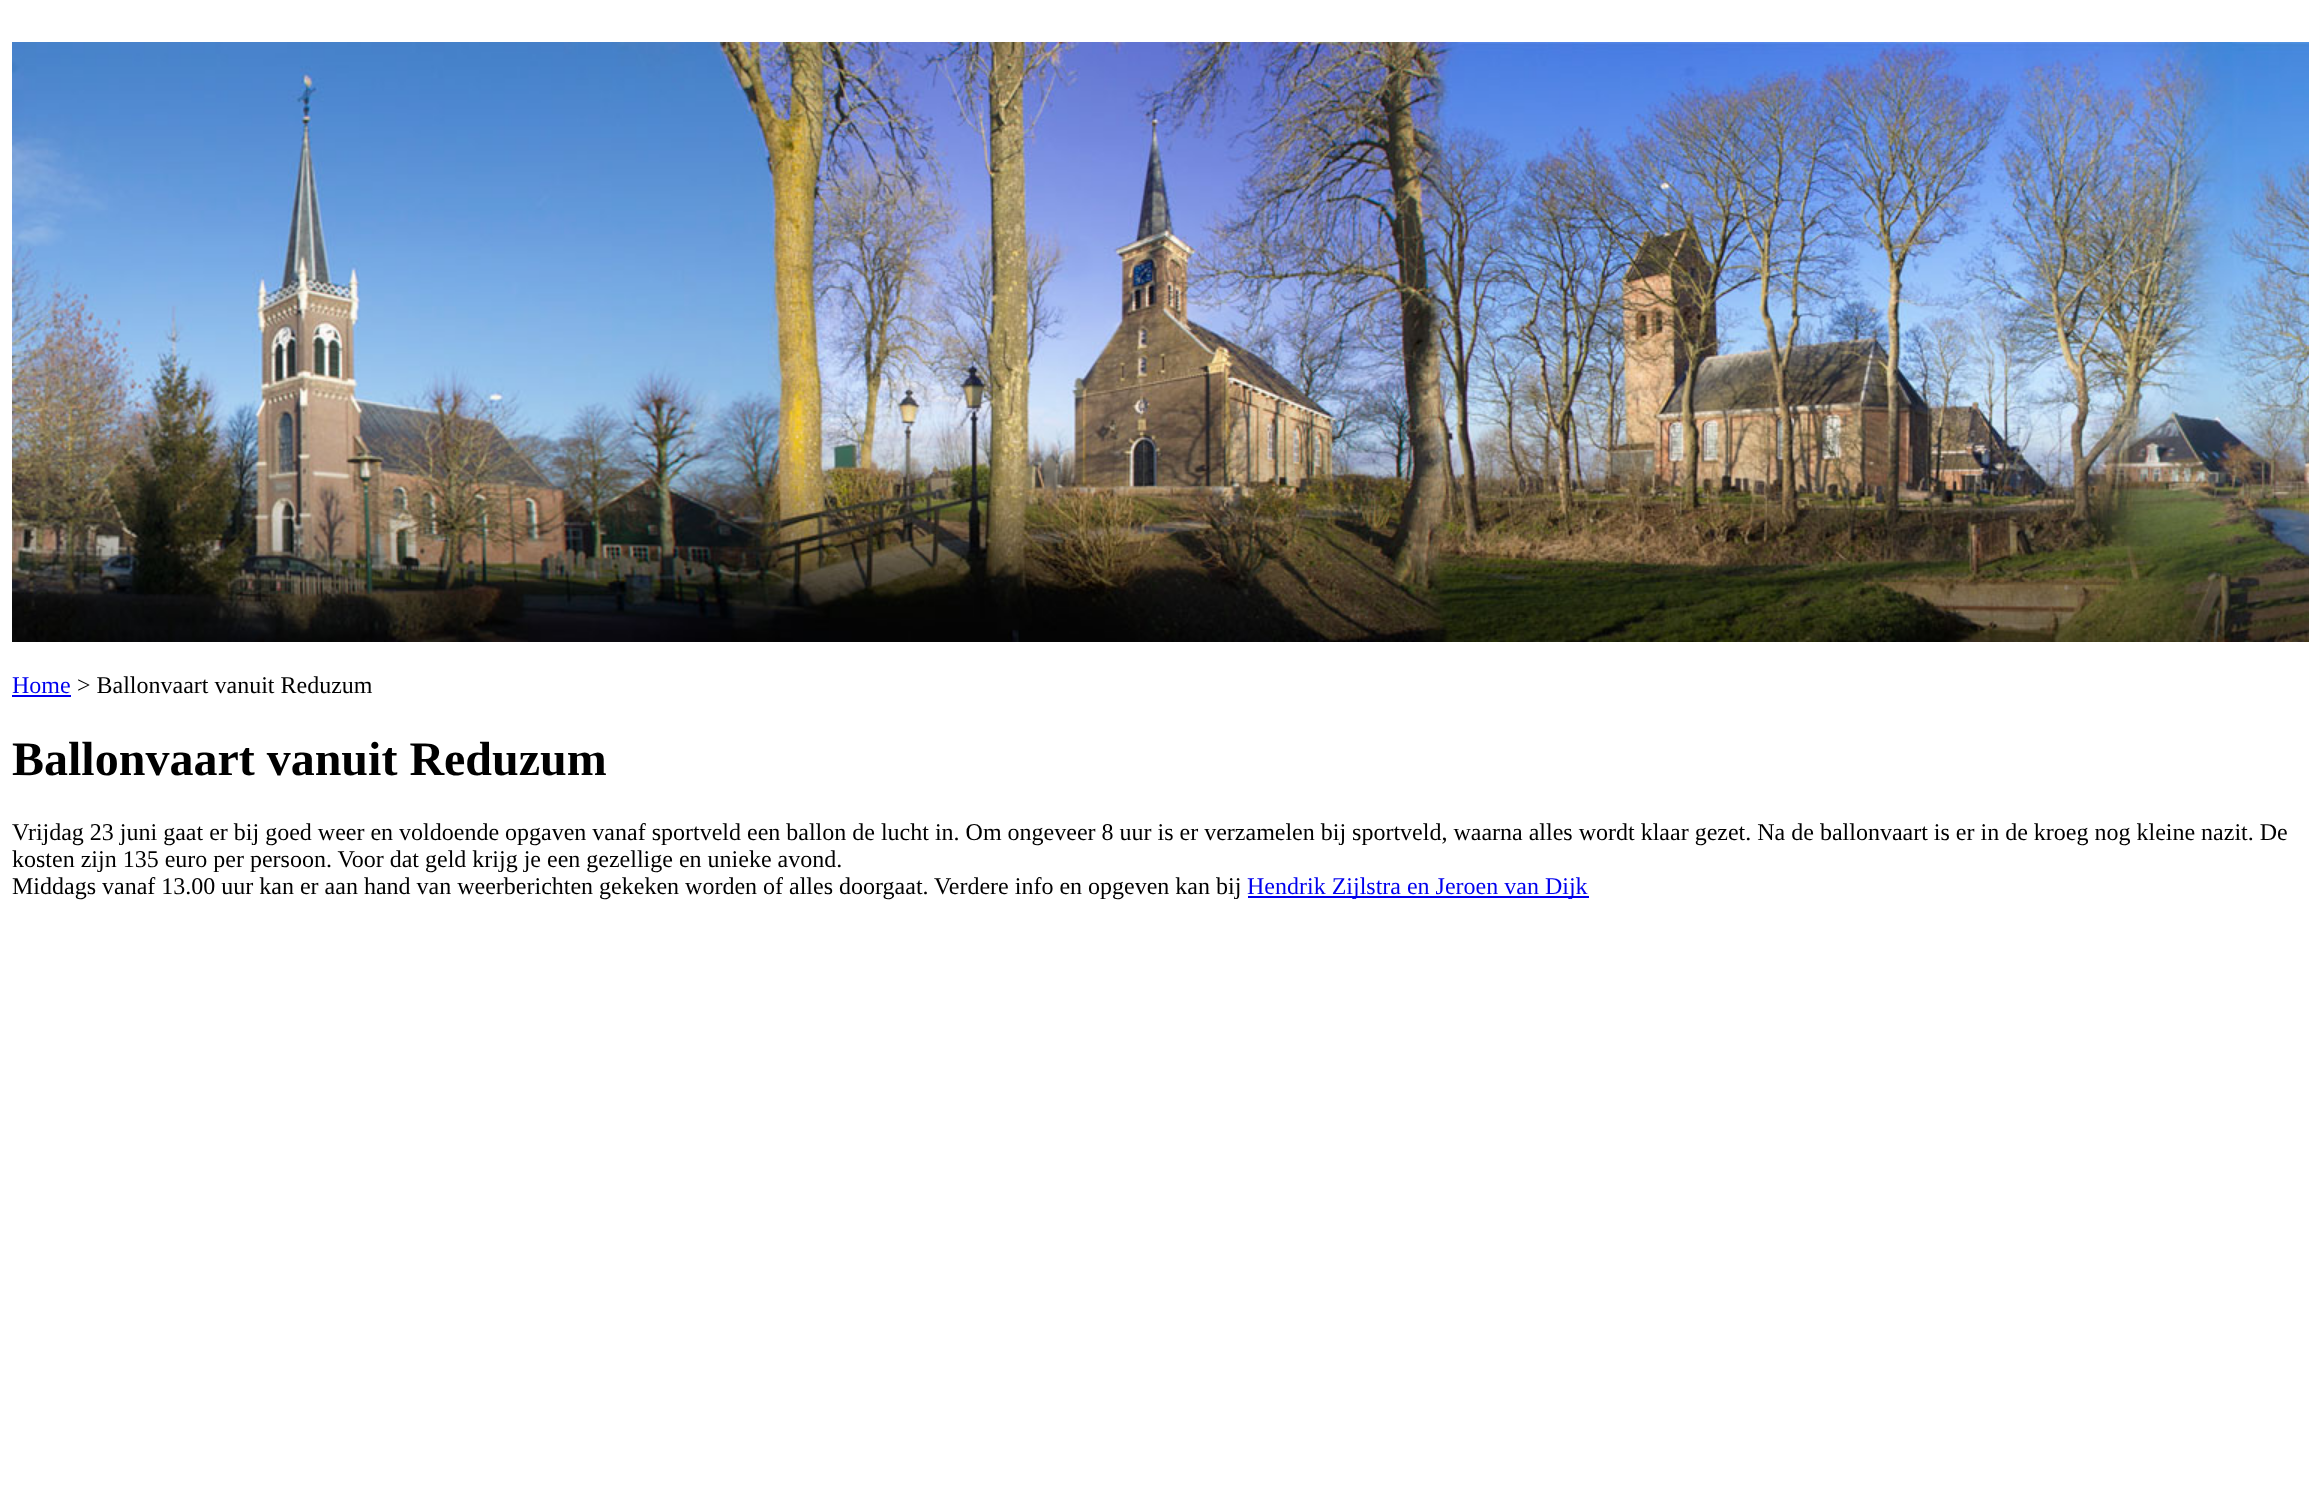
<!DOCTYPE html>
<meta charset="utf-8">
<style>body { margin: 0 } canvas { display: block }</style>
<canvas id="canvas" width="2309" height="1489"></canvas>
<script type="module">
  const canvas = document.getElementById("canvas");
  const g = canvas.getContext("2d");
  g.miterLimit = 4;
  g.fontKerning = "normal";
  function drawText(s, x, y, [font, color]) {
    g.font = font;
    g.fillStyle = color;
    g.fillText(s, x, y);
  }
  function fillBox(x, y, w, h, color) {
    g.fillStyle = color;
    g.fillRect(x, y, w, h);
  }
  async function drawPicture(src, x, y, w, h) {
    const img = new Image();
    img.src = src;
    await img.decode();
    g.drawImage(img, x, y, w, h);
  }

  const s1 = ["24px Liberation Serif", "#0000EE"];
  const s2 = ["24px Liberation Serif", "#000000"];
  const s3 = ["bold 48px Liberation Serif", "#000000"];

  fillBox(0, 0, 2309, 1489, "#FFFFFF");
  await drawPicture("pic1.png", 12, 42, 2297, 600);
  drawText("Home", 12, 693, s1);
  fillBox(12, 695, 59, 2, "#0000EE");
  drawText("> Ballonvaart vanuit Reduzum", 77, 693, s2);
  drawText("Ballonvaart vanuit Reduzum", 12, 775, s3);
  drawText("Vrijdag 23 juni gaat er bij goed weer en voldoende opgaven vanaf sportveld een ballon de lucht in. Om ongeveer 8 uur is er verzamelen bij sportveld, waarna alles wordt klaar gezet. Na de ballonvaart is er in de kroeg nog kleine nazit. De", 12, 840, s2);
  drawText("kosten zijn 135 euro per persoon. Voor dat geld krijg je een gezellige en unieke avond.", 12, 867, s2);
  drawText("Middags vanaf 13.00 uur kan er aan hand van weerberichten gekeken worden of alles doorgaat. Verdere info en opgeven kan bij", 12, 894, s2);
  fillBox(1248, 896, 341, 2, "#0000EE");
  drawText("Hendrik Zijlstra en Jeroen van Dijk", 1247, 894, s1);
</script>
